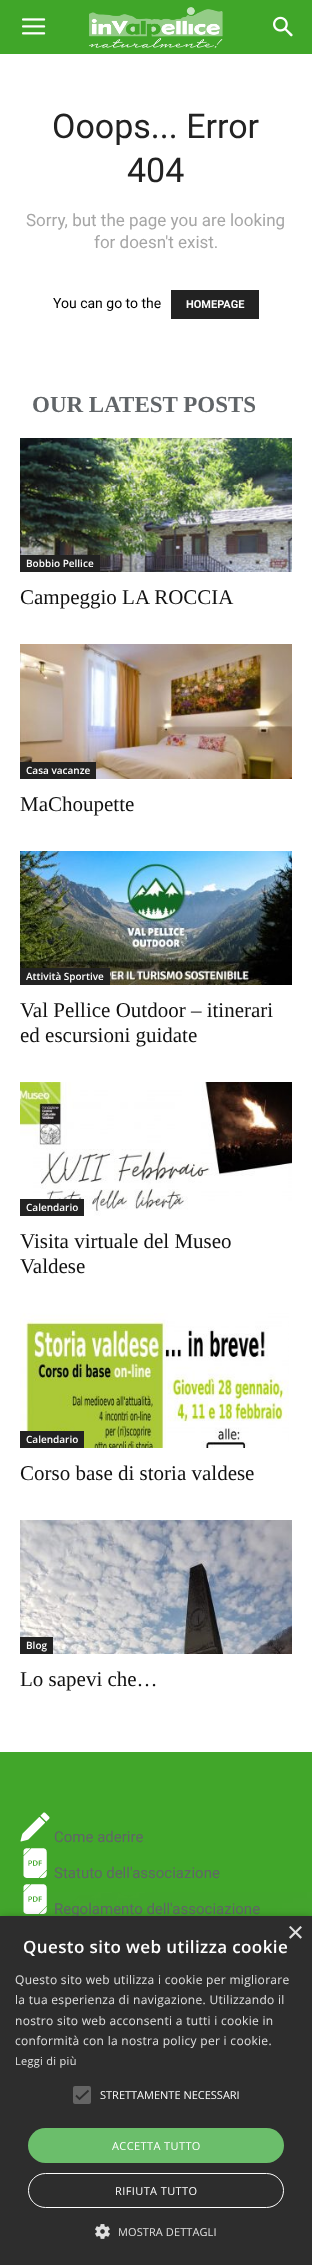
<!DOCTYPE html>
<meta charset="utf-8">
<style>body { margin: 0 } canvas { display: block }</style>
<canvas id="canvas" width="312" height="2265"></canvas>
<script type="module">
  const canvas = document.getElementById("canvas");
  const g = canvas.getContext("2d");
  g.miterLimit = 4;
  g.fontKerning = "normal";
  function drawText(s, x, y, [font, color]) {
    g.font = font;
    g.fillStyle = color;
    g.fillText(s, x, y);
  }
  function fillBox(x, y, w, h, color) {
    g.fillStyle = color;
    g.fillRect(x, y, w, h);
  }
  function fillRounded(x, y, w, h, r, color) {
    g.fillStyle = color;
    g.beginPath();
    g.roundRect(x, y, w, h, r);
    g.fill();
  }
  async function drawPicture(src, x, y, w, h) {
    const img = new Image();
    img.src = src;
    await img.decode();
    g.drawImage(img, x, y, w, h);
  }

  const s1 = ["34px Roboto", "#222222"];
  const s2 = ["17px Roboto", "#A6A6A6"];
  const s3 = ["14px Roboto", "#000000"];
  const s4 = ["bold 11px Roboto", "#FFFFFF"];
  const s5 = ["bold 23px Liberation Serif", "#616568"];
  const s6 = ["600 10px Open Sans", "#FFFFFF"];
  const s7 = ["21px Liberation Serif", "#111111"];
  const s8 = ["15px Roboto", "#616568"];
  const s9 = ["29px Liberation Sans", "#E0E0E0"];
  const s10 = ["600 17px Open Sans", "#FFFFFF"];
  const s11 = ["12px Open Sans", "#E0E0E0"];
  const s12 = ["11px Open Sans", "#E0E0E0"];
  const s13 = ["11px Open Sans", "#FFFFFF"];

  fillBox(0, 0, 312, 2265, "#FFFFFF");
  fillBox(0, 0, 312, 54, "#40A629");
  await drawPicture("pic1.png", 22, 18, 24, 17);
  await drawPicture("pic2.png", 88, 7, 135, 41);
  await drawPicture("pic3.png", 273, 16, 20, 21);
  drawText("Ooops... Error", 52, 138, s1);
  drawText("404", 127, 182, s1);
  drawText("Sorry, but the page you are looking", 26, 226, s2);
  drawText("for doesn't exist.", 94, 248, s2);
  drawText("You can go to the", 53, 308, s3);
  fillBox(171, 290, 88, 29, "#222222");
  drawText("HOMEPAGE", 186, 308, s4);
  drawText("OUR LATEST POSTS", 32, 412, s5);
  await drawPicture("pic4.png", 20, 438, 272, 134);
  fillBox(20, 555, 80, 17, "#222222");
  drawText("Bobbio Pellice", 26, 567, s6);
  drawText("Campeggio LA ROCCIA", 20, 604, s7);
  await drawPicture("pic5.png", 20, 644, 272, 135);
  fillBox(20, 762, 76, 17, "#222222");
  drawText("Casa vacanze", 26, 774, s6);
  drawText("MaChoupette", 20, 811, s7);
  await drawPicture("pic6.png", 20, 851, 272, 134);
  fillBox(20, 968, 90, 17, "#222222");
  drawText("Attività Sportive", 26, 980, s6);
  drawText("Val Pellice Outdoor – itinerari", 20, 1017, s7);
  drawText("ed escursioni guidate", 20, 1042, s7);
  await drawPicture("pic7.png", 20, 1082, 272, 134);
  fillBox(20, 1199, 64, 17, "#222222");
  drawText("Calendario", 26, 1211, s6);
  drawText("Visita virtuale del Museo", 20, 1248, s7);
  drawText("Valdese", 20, 1273, s7);
  await drawPicture("pic8.png", 20, 1313, 269, 135);
  fillBox(20, 1431, 64, 17, "#222222");
  drawText("Calendario", 26, 1443, s6);
  drawText("Corso base di storia valdese", 20, 1480, s7);
  await drawPicture("pic9.png", 20, 1520, 272, 134);
  fillBox(20, 1637, 33, 17, "#222222");
  drawText("Blog", 26, 1649, s6);
  drawText("Lo sapevi che…", 20, 1686, s7);
  fillBox(0, 1752, 312, 164, "#41A62A");
  await drawPicture("pic10.png", 0, 1892, 312, 24);
  await drawPicture("pic11.png", 20, 1812, 30, 30);
  drawText("Come aderire", 54, 1842, s8);
  await drawPicture("pic12.png", 23, 1848, 24, 30);
  drawText("Statuto dell'associazione", 54, 1878, s8);
  await drawPicture("pic13.png", 23, 1884, 24, 30);
  drawText("Regolamento dell'associazione", 54, 1914, s8);
  g.fillStyle = "rgba(0, 0, 0, 0.35)";
  g.filter = "blur(4px)";
  g.beginPath();
  g.rect(1, 1918, 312, 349);
  g.fill();
  g.filter = "none";
  fillBox(0, 1916, 312, 349, "#2D2D2D");
  drawText("×", 287, 1942, s9);
  g.letterSpacing = "0.4px";
  drawText("Questo sito web utilizza cookie", 23, 1953, s10);
  g.letterSpacing = "0.3px";
  drawText("Questo sito web utilizza i cookie per migliorare", 15, 1984, s11);
  drawText("la tua esperienza di navigazione. Utilizzando il", 15, 2004, s11);
  drawText("nostro sito web acconsenti a tutti i cookie in", 15, 2025, s11);
  drawText("conformità con la nostra policy per i cookie.", 15, 2045, s11);
  drawText("Leggi di più", 15, 2065, s12);
  fillRounded(73, 2086, 18, 18, 2, "#646464");
  g.beginPath();
  g.moveTo(76, 2095.5);
  g.lineTo(79.5, 2099);
  g.lineTo(88.5, 2090.5);
  g.strokeStyle = "#2D2D2D";
  g.lineWidth = 1.8;
  g.stroke();
  g.letterSpacing = "0px";
  drawText("STRETTAMENTE NECESSARI", 100, 2099, s13);
  fillRounded(28, 2128, 256, 35, 17.5, "#6BBE6B");
  g.letterSpacing = "0.4px";
  drawText("ACCETTA TUTTO", 112, 2150, s13);
  g.beginPath();
  g.roundRect(28.5, 2173.5, 255, 34, 17);
  g.strokeStyle = "#FFFFFF";
  g.lineWidth = 1;
  g.stroke();
  drawText("RIFIUTA TUTTO", 115, 2195, s13);
  await drawPicture("pic14.png", 95, 2224, 15, 15);
  g.letterSpacing = "0.1px";
  drawText("MOSTRA DETTAGLI", 118, 2236, s12);
</script>
